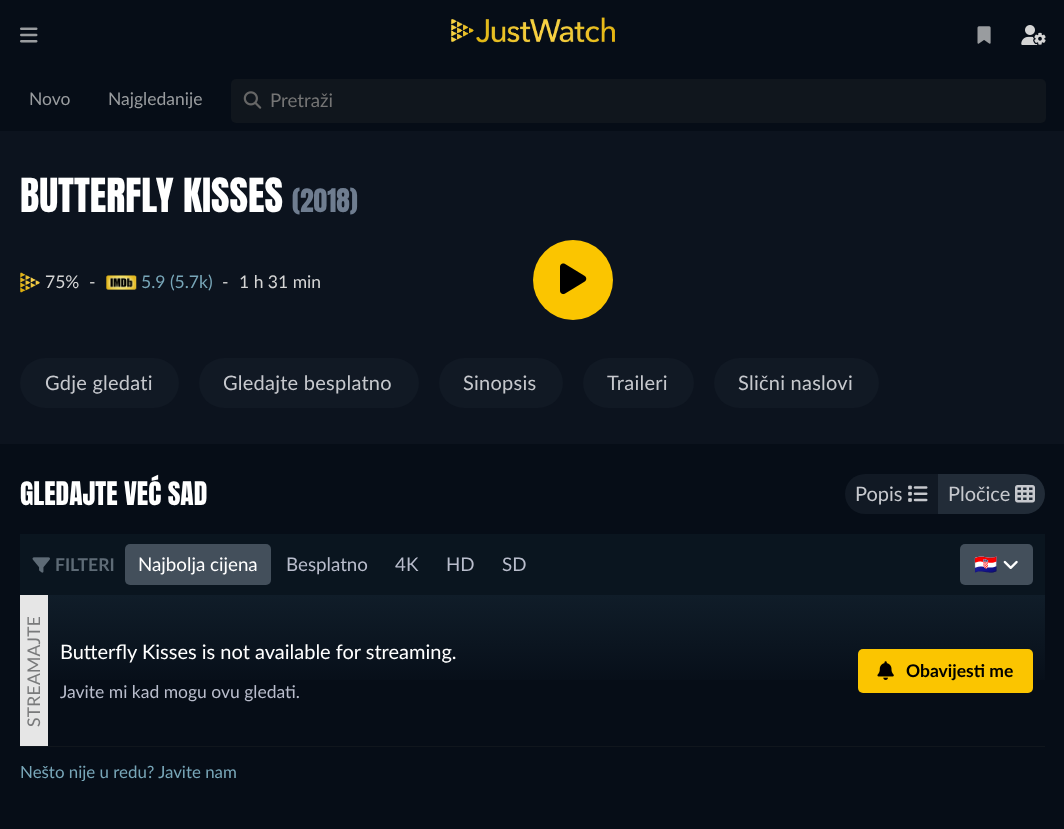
<!DOCTYPE html>
<meta charset="utf-8">
<style>body { margin: 0 } canvas { display: block }</style>
<canvas id="canvas" width="1064" height="829"></canvas>
<script type="module">
  const canvas = document.getElementById("canvas");
  const g = canvas.getContext("2d");
  g.miterLimit = 4;
  g.fontKerning = "normal";
  function drawText(s, x, y, [font, color]) {
    g.font = font;
    g.fillStyle = color;
    g.fillText(s, x, y);
  }
  function fillBox(x, y, w, h, color) {
    g.fillStyle = color;
    g.fillRect(x, y, w, h);
  }
  function fillRounded(x, y, w, h, r, color) {
    g.fillStyle = color;
    g.beginPath();
    g.roundRect(x, y, w, h, r);
    g.fill();
  }
  async function drawPicture(src, x, y, w, h) {
    const img = new Image();
    img.src = src;
    await img.decode();
    g.drawImage(img, x, y, w, h);
  }
  let gradient;

  const s1 = ["17.5px Lato", "#999C9F"];
  const s2 = ["18.75px Lato", "#757575"];
  const s3 = ["40px Anton", "#FFFFFF"];
  const s4 = ["27.5px Anton", "#6F7D90"];
  const s5 = ["17.5px Lato", "#D5D5D5"];
  const s6 = ["17.5px Lato", "#78A6B8"];
  const s7 = ["20px Lato", "#C6C8CD"];
  const s8 = ["27.5px Anton", "#FFFFFF"];
  const s9 = ["bold 17.5px Lato", "#5E6B76"];
  const s10 = ["18.75px Lato", "#FFFFFF"];
  const s11 = ["18.75px Lato", "#B9BDCC"];
  const s12 = ["18.75px Noto Color Emoji", "#FFFFFF"];
  const s13 = ["20px Lato", "#FFFFFF"];
  const s14 = ["17.5px Lato", "#B9BDCC"];
  const s15 = ["bold 17.5px Lato", "#000000"];
  const s16 = ["16.9px Lato", "#78A6B8"];

  fillBox(0, 0, 1064, 829, "#060D17");
  await drawPicture("pic1.png", 451, 17, 164, 26);
  await drawPicture("pic2.png", 20, 27, 18, 16);
  await drawPicture("pic3.png", 1021, 25, 25, 20);
  await drawPicture("pic4.png", 977, 26, 14, 18);
  drawText("Novo", 29, 105, s1);
  drawText("Najgledanije", 108, 105, s1);
  fillRounded(231, 79, 815, 44, 5, "#10161D");
  await drawPicture("pic5.png", 243, 91, 19, 18);
  drawText("Pretraži", 270, 107, s2);
  fillBox(0, 131, 1064, 313, "#0C131E");
  drawText("BUTTERFLY KISSES", 20, 212, s3);
  drawText("(2018)", 292, 212, s4);
  await drawPicture("pic6.png", 20, 272, 20, 21);
  drawText("75%", 45, 288, s5);
  drawText("-", 89, 288, s5);
  await drawPicture("pic7.png", 106, 275, 31, 15);
  drawText("5.9 (5.7k)", 141, 288, s6);
  drawText("-", 222, 288, s5);
  drawText("1 h 31 min", 239, 288, s5);
  fillRounded(20, 358, 159, 50, 25, "#111924");
  g.letterSpacing = "0.25px";
  drawText("Gdje gledati", 45, 390, s7);
  fillRounded(199, 358, 220, 50, 25, "#111924");
  drawText("Gledajte besplatno", 223, 390, s7);
  fillRounded(439, 358, 124, 50, 25, "#111924");
  drawText("Sinopsis", 463, 390, s7);
  fillRounded(583, 358, 111, 50, 25, "#111924");
  drawText("Traileri", 607, 390, s7);
  fillRounded(714, 358, 165, 50, 25, "#111924");
  drawText("Slični naslovi", 738, 390, s7);
  g.fillStyle = "#FBC500";
  g.beginPath();
  g.arc(573, 280, 40, 0, Math.PI * 2);
  g.fill();
  await drawPicture("pic8.png", 560, 263, 27, 32);
  g.letterSpacing = "0px";
  drawText("GLEDAJTE VEĆ SAD", 20, 505, s8);
  g.fillStyle = "#111924";
  g.beginPath();
  g.roundRect(845, 474, 93, 40, [20, 0, 0, 20]);
  g.fill();
  drawText("Popis", 855, 501, s7);
  await drawPicture("pic9.png", 908, 485, 20, 17);
  g.fillStyle = "#222C38";
  g.beginPath();
  g.roundRect(938, 474, 107, 40, [0, 20, 20, 0]);
  g.fill();
  drawText("Pločice", 948, 501, s7);
  await drawPicture("pic10.png", 1015, 485, 20, 18);
  fillBox(20, 534, 1025, 61, "#0A151F");
  await drawPicture("pic11.png", 32, 557, 18, 16);
  drawText("FILTERI", 55, 571, s9);
  fillRounded(125, 544, 146, 41, 5, "#434F5B");
  drawText("Najbolja cijena", 138, 571, s10);
  drawText("Besplatno", 286, 571, s11);
  drawText("4K", 395, 571, s11);
  drawText("HD", 446, 571, s11);
  drawText("SD", 502, 571, s11);
  fillRounded(960, 544, 73, 41, 5, "#434F5B");
  drawText("🇭🇷", 974, 571, s12);
  await drawPicture("pic12.png", 1003, 560, 15, 9);
  fillBox(20, 746, 1025, 1, "#10161D");
  fillBox(20, 595, 28, 151, "#E6E6E6");
  g.letterSpacing = "0.25px";
  g.font = "17.5px Lato";
  g.fillStyle = "#797A7B";
  g.save();
  g.translate(40, 727);
  g.rotate(-90 * Math.PI / 180);
  g.fillText("STREAMAJTE", 0, 0);
  g.restore();
  gradient = g.createLinearGradient(546, 595, 546, 746);
  gradient.addColorStop(0, "#101D29");
  gradient.addColorStop(0.65, "#060D17");
  g.fillStyle = gradient;
  g.fillRect(48, 595, 997, 85);
  g.letterSpacing = "0px";
  drawText("Butterfly Kisses is not available for streaming.", 60, 659, s13);
  drawText("Javite mi kad mogu ovu gledati.", 60, 698, s14);
  fillRounded(858, 649, 175, 44, 5, "#FBC500");
  await drawPicture("pic13.png", 877, 661, 17, 19);
  drawText("Obavijesti me", 906, 677, s15);
  drawText("Nešto nije u redu? Javite nam", 20, 778, s16);
</script>
